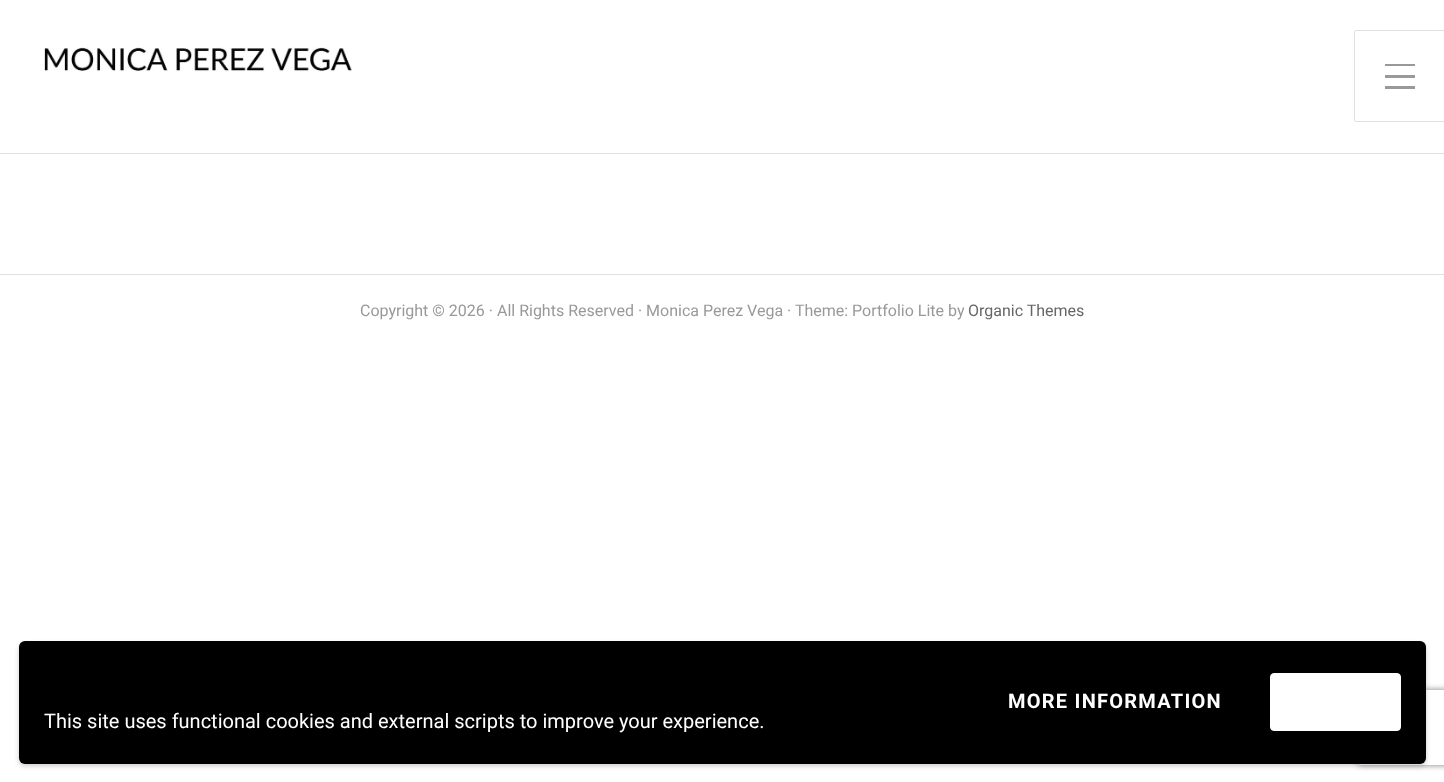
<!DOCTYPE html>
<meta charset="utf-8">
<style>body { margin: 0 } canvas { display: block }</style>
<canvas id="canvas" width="1444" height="782"></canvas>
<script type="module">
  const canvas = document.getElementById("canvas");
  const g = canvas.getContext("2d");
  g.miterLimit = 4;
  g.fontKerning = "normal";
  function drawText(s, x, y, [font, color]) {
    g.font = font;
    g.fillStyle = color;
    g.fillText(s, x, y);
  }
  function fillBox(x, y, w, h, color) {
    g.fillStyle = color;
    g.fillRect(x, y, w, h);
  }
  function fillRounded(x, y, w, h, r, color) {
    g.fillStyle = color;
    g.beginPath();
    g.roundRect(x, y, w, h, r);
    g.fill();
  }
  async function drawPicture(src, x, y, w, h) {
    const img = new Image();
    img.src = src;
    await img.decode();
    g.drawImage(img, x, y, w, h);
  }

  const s1 = ["16px Roboto", "#999999"];
  const s2 = ["16px Roboto", "#666666"];
  const s3 = ["bold 20px Roboto", "#FFFFFF"];
  const s4 = ["20px Roboto", "#FFFFFF"];

  fillBox(0, 0, 1444, 782, "#FFFFFF");
  await drawPicture("pic1.png", 44, 47, 308, 25);
  fillBox(1355, 30, 89, 1, "#E0E0E0");
  fillBox(1355, 121, 89, 1, "#E0E0E0");
  fillBox(1354, 31, 1, 90, "#E0E0E0");
  fillBox(1385, 64, 30, 2, "#999999");
  fillBox(1385, 75, 30, 3, "#999999");
  fillBox(1385, 86, 30, 3, "#999999");
  fillBox(0, 153, 1444, 1, "#E0E0E0");
  fillBox(0, 274, 1444, 1, "#E0E0E0");
  drawText("Copyright © 2026 · All Rights Reserved · Monica Perez Vega · Theme: Portfolio Lite by", 360, 316, s1);
  drawText("Organic Themes", 968, 316, s2);
  g.fillStyle = "rgba(0, 0, 0, 0.2)";
  g.filter = "blur(2.5px)";
  g.beginPath();
  g.roundRect(19, 644, 1407, 122, 6);
  g.fill();
  g.filter = "none";
  g.save();
  g.beginPath();
  g.moveTo(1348, 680);
  g.lineTo(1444, 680);
  g.lineTo(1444, 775);
  g.lineTo(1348, 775);
  g.closePath();
  g.moveTo(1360.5, 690);
  g.lineTo(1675.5, 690);
  g.bezierCurveTo(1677, 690, 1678, 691, 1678, 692.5);
  g.lineTo(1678, 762.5);
  g.bezierCurveTo(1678, 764, 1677, 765, 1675.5, 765);
  g.lineTo(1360.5, 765);
  g.bezierCurveTo(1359, 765, 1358, 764, 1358, 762.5);
  g.lineTo(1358, 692.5);
  g.bezierCurveTo(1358, 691, 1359, 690, 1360.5, 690);
  g.closePath();
  g.clip("evenodd");
  g.fillStyle = "#808080";
  g.filter = "blur(3px)";
  g.beginPath();
  g.roundRect(1358, 690, 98, 75, 2.5);
  g.fill();
  g.filter = "none";
  g.restore();
  fillRounded(19, 641, 1407, 123, 6, "#000000");
  g.letterSpacing = "1.25px";
  drawText("MORE INFORMATION", 1008, 708, s3);
  g.beginPath();
  g.roundRect(1270.5, 673.5, 130, 57, 3.5);
  g.fill();
  g.strokeStyle = "#FFFFFF";
  g.stroke();
  g.letterSpacing = "0px";
  drawText("This site uses functional cookies and external scripts to improve your experience.", 44, 728, s4);
</script>
